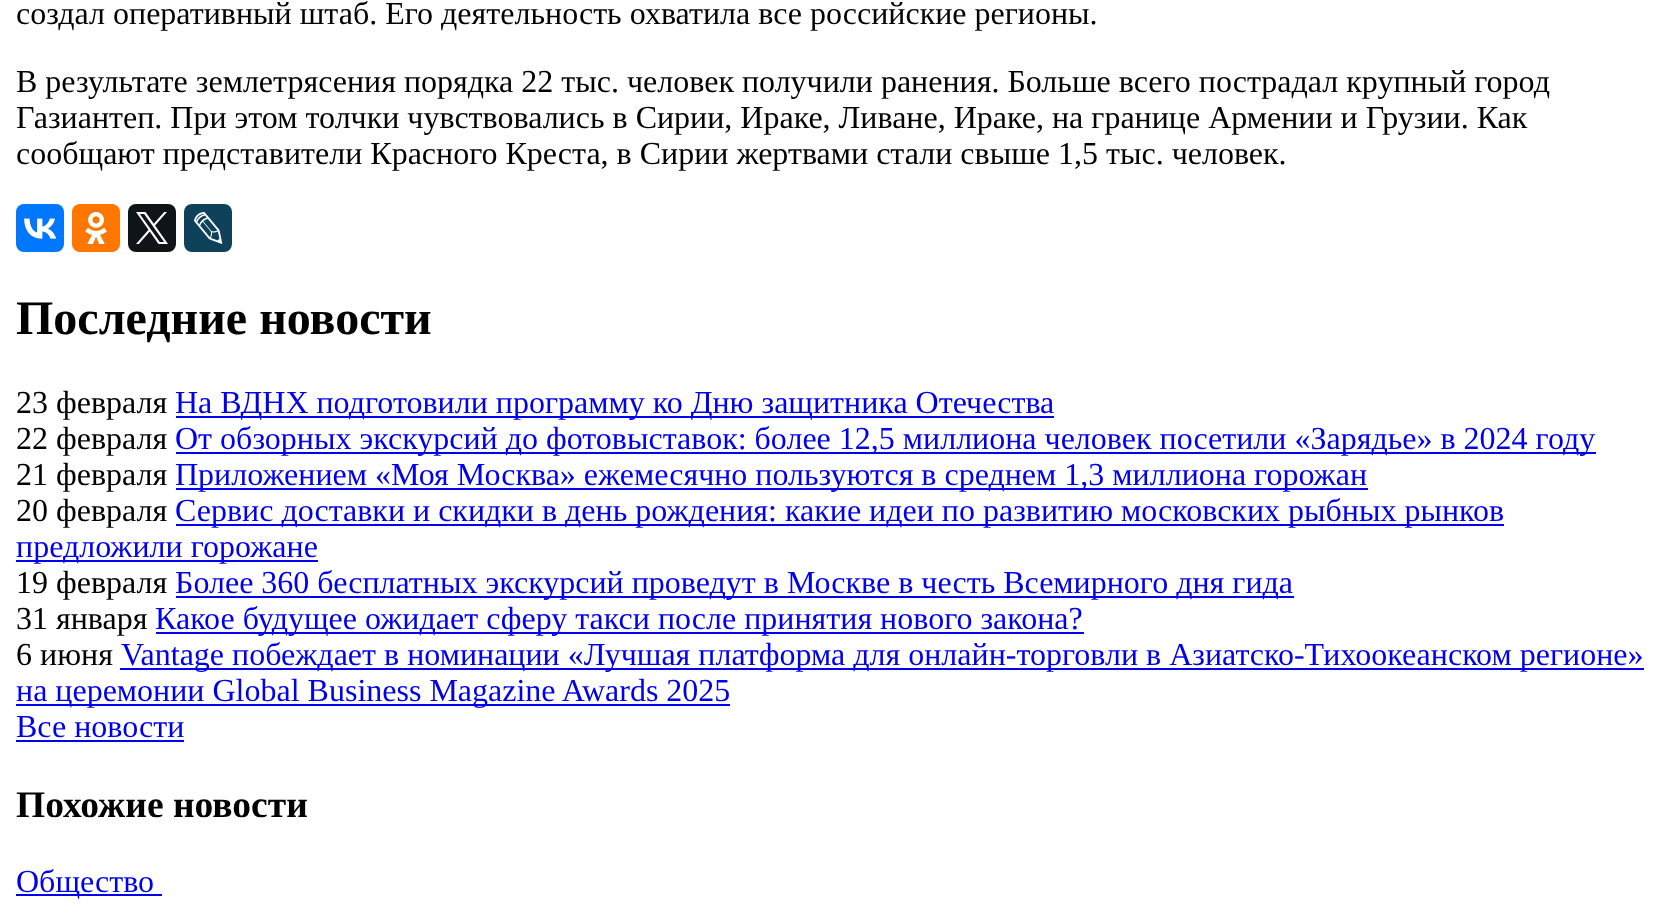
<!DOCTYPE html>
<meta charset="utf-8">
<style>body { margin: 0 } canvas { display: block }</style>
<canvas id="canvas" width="1675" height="919"></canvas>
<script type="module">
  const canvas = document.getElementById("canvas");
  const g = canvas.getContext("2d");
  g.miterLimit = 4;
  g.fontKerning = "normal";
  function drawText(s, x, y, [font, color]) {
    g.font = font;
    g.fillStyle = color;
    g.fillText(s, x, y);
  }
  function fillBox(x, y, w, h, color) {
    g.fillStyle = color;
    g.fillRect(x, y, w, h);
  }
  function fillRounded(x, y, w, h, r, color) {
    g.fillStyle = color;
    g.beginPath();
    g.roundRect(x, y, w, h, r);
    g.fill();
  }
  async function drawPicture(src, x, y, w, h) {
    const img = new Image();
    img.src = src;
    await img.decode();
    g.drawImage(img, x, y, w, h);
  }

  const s1 = ["32px Liberation Serif", "#000000"];
  const s2 = ["bold 48px Liberation Serif", "#000000"];
  const s3 = ["32px Liberation Serif", "#0000EE"];
  const s4 = ["bold 37.5px Liberation Serif", "#000000"];

  fillBox(0, 0, 1675, 919, "#FFFFFF");
  drawText("создал оперативный штаб. Его деятельность охватила все российские регионы.", 16, 24, s1);
  drawText("В результате землетрясения порядка 22 тыс. человек получили ранения. Больше всего пострадал крупный город", 16, 92, s1);
  drawText("Газиантеп. При этом толчки чувствовались в Сирии, Ираке, Ливане, Ираке, на границе Армении и Грузии. Как", 16, 128, s1);
  drawText("сообщают представители Красного Креста, в Сирии жертвами стали свыше 1,5 тыс. человек.", 16, 164, s1);
  fillRounded(16, 204, 48, 48, 8, "#0077FF");
  await drawPicture("pic1.png", 24, 218, 33, 21);
  fillRounded(72, 204, 48, 48, 8, "#FF7700");
  await drawPicture("pic2.png", 85, 212, 22, 32);
  fillRounded(128, 204, 48, 48, 8, "#0F1419");
  await drawPicture("pic3.png", 136, 212, 32, 32);
  fillRounded(184, 204, 48, 48, 8, "#0D425A");
  await drawPicture("pic4.png", 194, 212, 29, 32);
  drawText("Последние новости", 16, 334, s2);
  drawText("23 февраля", 16, 413, s1);
  fillBox(176, 416, 878, 2, "#0000EE");
  drawText("На ВДНХ подготовили программу ко Дню защитника Отечества", 175, 413, s3);
  drawText("22 февраля", 16, 449, s1);
  fillBox(176, 452, 1420, 2, "#0000EE");
  drawText("От обзорных экскурсий до фотовыставок: более 12,5 миллиона человек посетили «Зарядье» в 2024 году", 175, 449, s3);
  drawText("21 февраля", 16, 485, s1);
  fillBox(176, 488, 1192, 2, "#0000EE");
  drawText("Приложением «Моя Москва» ежемесячно пользуются в среднем 1,3 миллиона горожан", 175, 485, s3);
  drawText("20 февраля", 16, 521, s1);
  fillBox(176, 524, 1328, 2, "#0000EE");
  drawText("Сервис доставки и скидки в день рождения: какие идеи по развитию московских рыбных рынков", 175, 521, s3);
  fillBox(16, 560, 302, 2, "#0000EE");
  drawText("предложили горожане", 16, 557, s3);
  drawText("19 февраля", 16, 593, s1);
  fillBox(176, 596, 1118, 2, "#0000EE");
  drawText("Более 360 бесплатных экскурсий проведут в Москве в честь Всемирного дня гида", 175, 593, s3);
  drawText("31 января", 16, 629, s1);
  fillBox(156, 632, 928, 2, "#0000EE");
  drawText("Какое будущее ожидает сферу такси после принятия нового закона?", 155, 629, s3);
  drawText("6 июня", 16, 665, s1);
  fillBox(120, 668, 1524, 2, "#0000EE");
  drawText("Vantage побеждает в номинации «Лучшая платформа для онлайн-торговли в Азиатско-Тихоокеанском регионе»", 121, 665, s3);
  fillBox(16, 704, 714, 2, "#0000EE");
  drawText("на церемонии Global Business Magazine Awards 2025", 16, 701, s3);
  drawText("Все новости", 16, 737, s3);
  fillBox(16, 740, 168, 2, "#0000EE");
  drawText("Похожие новости", 16, 817, s4);
  fillBox(16, 894, 146, 2, "#0000EE");
  drawText("Общество", 16, 892, s3);
</script>
